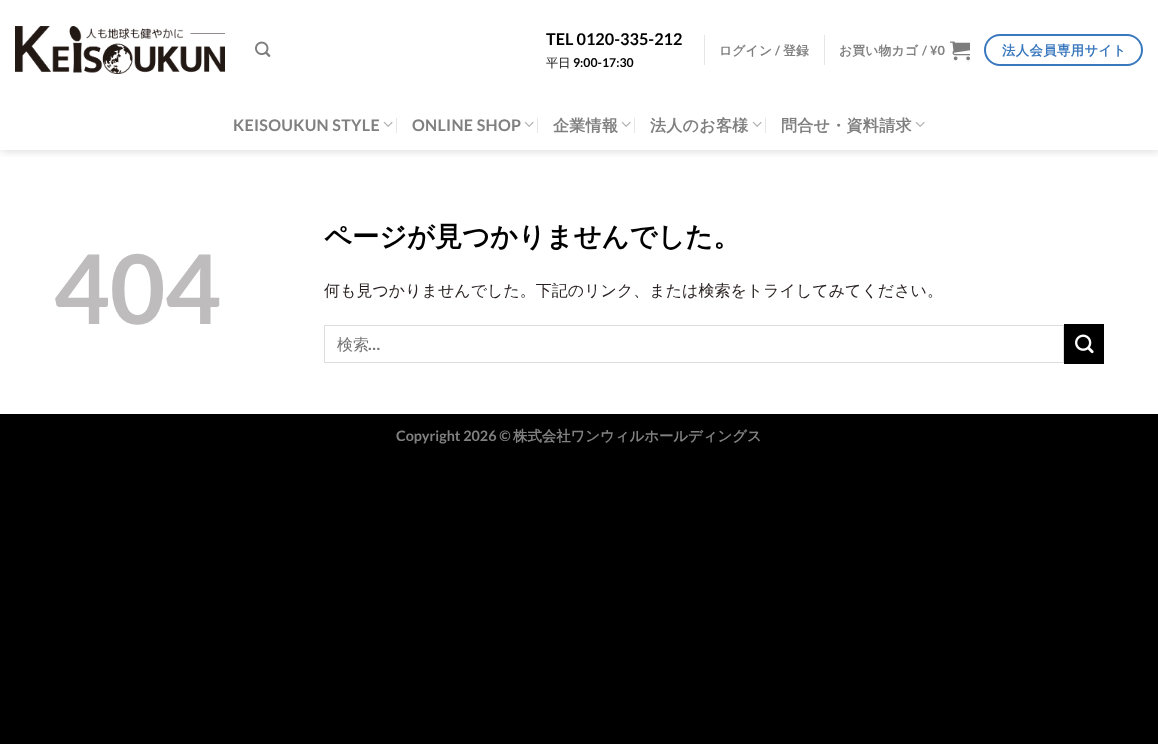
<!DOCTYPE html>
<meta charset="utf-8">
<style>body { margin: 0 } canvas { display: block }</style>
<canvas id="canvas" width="1158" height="744"></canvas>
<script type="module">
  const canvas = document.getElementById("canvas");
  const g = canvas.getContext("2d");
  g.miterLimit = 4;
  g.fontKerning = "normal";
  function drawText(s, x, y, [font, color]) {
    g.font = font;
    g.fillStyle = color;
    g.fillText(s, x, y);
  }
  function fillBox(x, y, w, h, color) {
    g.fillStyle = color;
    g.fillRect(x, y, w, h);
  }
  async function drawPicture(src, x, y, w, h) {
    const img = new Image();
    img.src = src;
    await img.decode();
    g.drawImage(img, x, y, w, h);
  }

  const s1 = ["bold 16.25px Lato", "#000000"];
  const s2 = ["500 12.25px WenQuanYi Zen Hei", "#000000"];
  const s3 = ["bold 12.25px Lato", "#000000"];
  const s4 = ["bold 12.75px WenQuanYi Zen Hei", "#808080"];
  const s5 = ["bold 12.75px Lato", "#808080"];
  const s6 = ["bold 13.25px WenQuanYi Zen Hei", "#3A78BE"];
  const s7 = ["bold 16px Lato", "#808080"];
  const s8 = ["bold 16px WenQuanYi Zen Hei", "#808080"];
  const s9 = ["bold 96px Lato", "#BEBCBC"];
  const s10 = ["bold 27.25px WenQuanYi Zen Hei", "#000000"];
  const s11 = ["500 16px WenQuanYi Zen Hei", "#271F1F"];
  const s12 = ["500 16px WenQuanYi Zen Hei", "#757575"];
  const s13 = ["bold 16px Lato", "#757575"];
  const s14 = ["bold 14.4px Lato", "#808080"];
  const s15 = ["bold 14.4px WenQuanYi Zen Hei", "#808080"];

  fillBox(0, 0, 1158, 744, "#000000");
  fillBox(0, 0, 1158, 414, "#FFFFFF");
  g.save();
  g.beginPath();
  g.rect(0, 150, 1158, 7);
  g.clip();
  g.fillStyle = "rgba(0, 0, 0, 0.15)";
  g.filter = "blur(5px)";
  g.beginPath();
  g.rect(1, 1, 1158, 150);
  g.fill();
  g.filter = "none";
  g.restore();
  await drawPicture("pic1.png", 15, 26, 210, 48);
  await drawPicture("pic2.png", 255, 41, 16, 16);
  drawText("TEL 0120-335-212", 546, 45, s1);
  drawText("平日", 546, 67, s2);
  drawText("9:00-17:30", 573, 67, s3);
  fillBox(704, 35, 1, 30, "#E6E6E6");
  g.letterSpacing = "0.25px";
  drawText("ログイン", 719, 55, s4);
  drawText("/", 775, 55, s5);
  drawText("登録", 783, 55, s4);
  fillBox(824, 35, 1, 30, "#E6E6E6");
  drawText("お買い物カゴ", 839, 55, s4);
  drawText("/ ¥0", 922, 55, s5);
  await drawPicture("pic3.png", 950, 41, 20, 20);
  g.beginPath();
  g.roundRect(985, 35, 157, 30, 15);
  g.strokeStyle = "#3A78BE";
  g.lineWidth = 2;
  g.stroke();
  g.letterSpacing = "0.5px";
  drawText("法人会員専用サイト", 1002, 55, s6);
  g.letterSpacing = "0.3px";
  drawText("KEISOUKUN STYLE", 233, 131, s7);
  await drawPicture("pic4.png", 383, 121, 10, 6);
  fillBox(396, 118, 1, 15, "#E6E6E6");
  drawText("ONLINE SHOP", 412, 131, s7);
  await drawPicture("pic4.png", 524, 121, 10, 6);
  fillBox(537, 118, 1, 15, "#E6E6E6");
  drawText("企業情報", 553, 131, s8);
  await drawPicture("pic4.png", 621, 121, 10, 6);
  fillBox(634, 118, 1, 15, "#E6E6E6");
  drawText("法人のお客様", 650, 131, s8);
  await drawPicture("pic4.png", 752, 121, 10, 6);
  fillBox(765, 118, 1, 15, "#E6E6E6");
  drawText("問合せ・資料請求", 781, 131, s8);
  await drawPicture("pic4.png", 915, 121, 10, 6);
  g.letterSpacing = "0px";
  drawText("404", 54, 324, s9);
  drawText("ページが見つかりませんでした。", 324, 246, s10);
  drawText("何も見つかりませんでした。下記のリンク、または検索をトライしてみてください。", 324, 296, s11);
  g.strokeStyle = "#DDDDDD";
  g.lineWidth = 1;
  g.strokeRect(324.5, 325.5, 739, 37);
  drawText("検索", 337, 350, s12);
  drawText("…", 368, 350, s13);
  fillBox(1064, 324, 40, 40, "#000000");
  await drawPicture("pic5.png", 1075, 334, 19, 20);
  drawText("Copyright 2026 ©", 396, 441, s14);
  drawText("株式会社ワンウィルホールディングス", 513, 441, s15);
</script>
